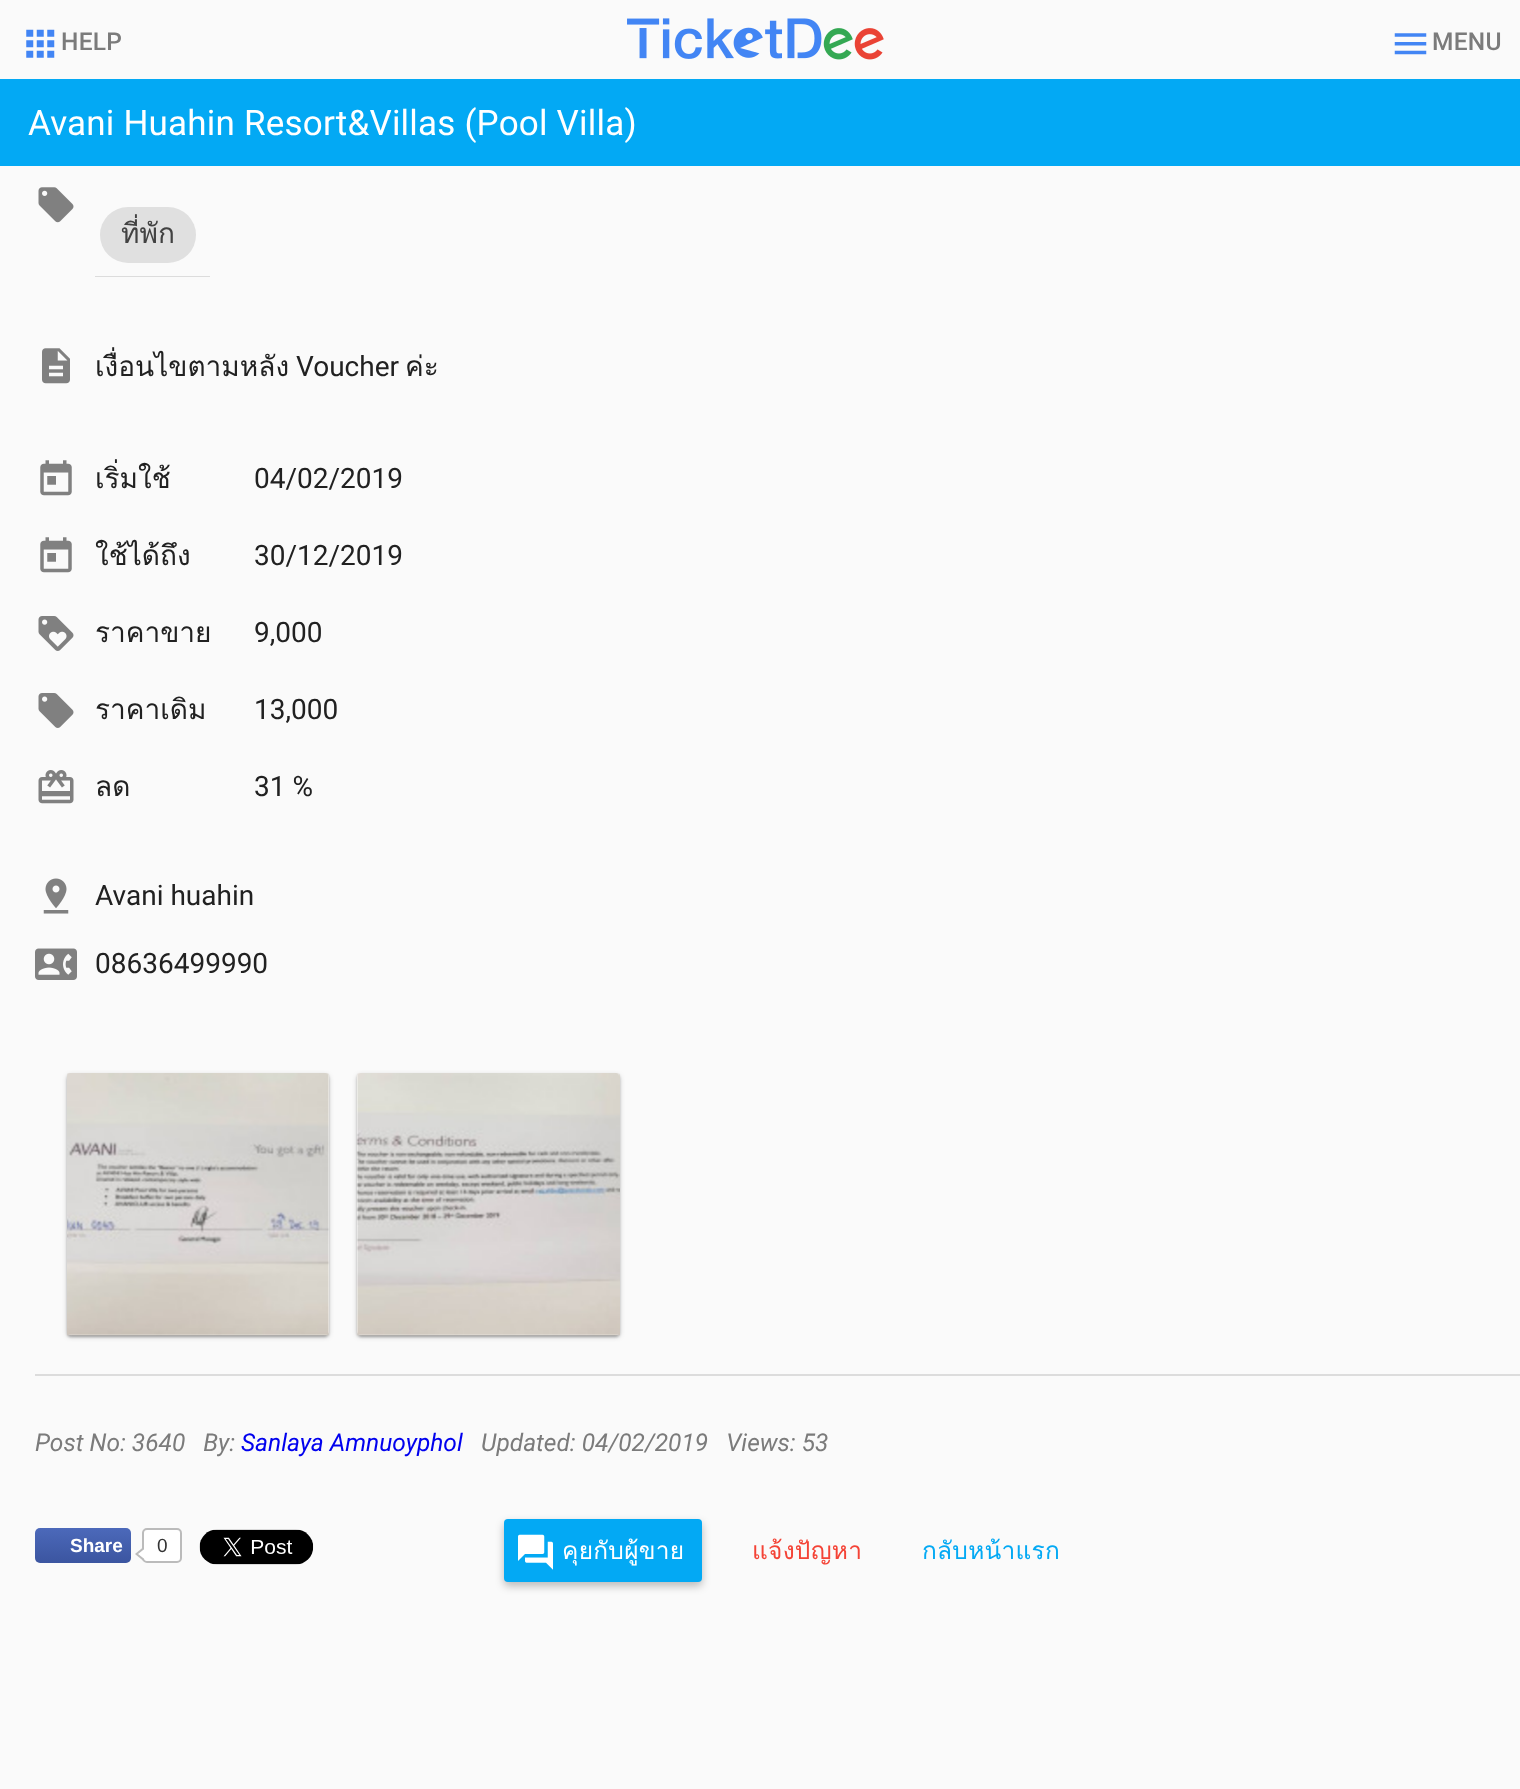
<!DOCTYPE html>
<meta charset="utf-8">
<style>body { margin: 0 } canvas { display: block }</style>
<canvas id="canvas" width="1520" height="1789"></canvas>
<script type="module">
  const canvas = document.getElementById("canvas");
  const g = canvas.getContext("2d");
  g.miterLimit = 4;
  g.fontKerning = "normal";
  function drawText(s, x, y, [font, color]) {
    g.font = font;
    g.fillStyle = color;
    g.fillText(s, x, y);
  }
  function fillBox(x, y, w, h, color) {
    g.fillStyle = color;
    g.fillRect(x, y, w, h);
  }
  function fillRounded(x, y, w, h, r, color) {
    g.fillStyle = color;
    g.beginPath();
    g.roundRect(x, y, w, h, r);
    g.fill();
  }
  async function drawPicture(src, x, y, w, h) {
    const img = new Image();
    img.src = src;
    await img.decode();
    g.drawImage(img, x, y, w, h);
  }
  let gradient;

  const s1 = ["500 24.5px Roboto", "#7B7B7B"];
  const s2 = ["35px Roboto", "#FFFFFF"];
  const s3 = ["28px Loma", "#424242"];
  const s4 = ["28px Loma", "#212121"];
  const s5 = ["28px Roboto", "#212121"];
  const s6 = ["italic 24.5px Roboto", "#7B7B7B"];
  const s7 = ["italic 24.5px Roboto", "#0000EE"];
  const s8 = ["bold 19px Liberation Sans", "#FFFFFF"];
  const s9 = ["19px Liberation Sans", "#333333"];
  const s10 = ["24.5px Loma", "#FFFFFF"];
  const s11 = ["24.5px Loma", "#F44336"];
  const s12 = ["24.5px Loma", "#03A9F4"];

  fillBox(0, 0, 1520, 1789, "#FAFAFA");
  await drawPicture("pic1.png", 26, 29, 29, 29);
  g.letterSpacing = "0.25px";
  drawText("HELP", 61, 50, s1);
  await drawPicture("pic2.png", 627, 18, 257, 42);
  await drawPicture("pic3.png", 1394, 33, 33, 22);
  drawText("MENU", 1432, 50, s1);
  fillBox(0, 79, 1520, 87, "#03A9F4");
  g.letterSpacing = "0.2px";
  drawText("Avani Huahin Resort&Villas (Pool Villa)", 28, 135, s2);
  await drawPicture("pic4.png", 38, 187, 36, 36);
  fillBox(95, 276, 115, 1, "#DCDCDC");
  fillRounded(100, 207, 96, 56, 28, "#E0E0E0");
  g.letterSpacing = "0px";
  drawText("ที่พัก", 121, 243, s3);
  await drawPicture("pic5.png", 42, 348, 28, 36);
  drawText("เงื่อนไขตามหลัง", 95, 376, s4);
  drawText("Voucher", 296, 376, s5);
  drawText("ค่ะ", 405, 376, s4);
  await drawPicture("pic6.png", 40, 460, 32, 36);
  drawText("เริ่มใช้", 95, 488, s4);
  drawText("04/02/2019", 254, 488, s5);
  await drawPicture("pic6.png", 40, 537, 32, 36);
  drawText("ใช้ได้ถึง", 95, 565, s4);
  drawText("30/12/2019", 254, 565, s5);
  await drawPicture("pic7.png", 38, 616, 36, 35);
  drawText("ราคาขาย", 95, 642, s4);
  drawText("9,000", 254, 642, s5);
  await drawPicture("pic8.png", 38, 693, 36, 35);
  drawText("ราคาเดิม", 95, 719, s4);
  drawText("13,000", 254, 719, s5);
  await drawPicture("pic9.png", 38, 770, 36, 34);
  drawText("ลด", 95, 796, s4);
  drawText("31 %", 254, 796, s5);
  await drawPicture("pic10.png", 43, 878, 26, 36);
  drawText("Avani huahin", 95, 905, s5);
  await drawPicture("pic11.png", 35, 948, 42, 32);
  drawText("08636499990", 95, 973, s5);
  g.fillStyle = "rgba(0, 0, 0, 0.12)";
  g.filter = "blur(1px)";
  g.beginPath();
  g.roundRect(68, 1078, 259, 259, 2);
  g.fill();
  g.filter = "none";
  g.fillStyle = "rgba(0, 0, 0, 0.14)";
  g.filter = "blur(1px)";
  g.beginPath();
  g.roundRect(67, 1075, 262, 262, 4);
  g.fill();
  g.filter = "none";
  g.fillStyle = "rgba(0, 0, 0, 0.2)";
  g.filter = "blur(2.5px)";
  g.beginPath();
  g.roundRect(67, 1075, 262, 262, 4);
  g.fill();
  g.filter = "none";
  fillRounded(67, 1073, 262, 262, 4, "#FFFFFF");
  await drawPicture("pic12.png", 67, 1073, 263, 263);
  g.fillStyle = "rgba(0, 0, 0, 0.12)";
  g.filter = "blur(1px)";
  g.beginPath();
  g.roundRect(359, 1078, 259, 259, 2);
  g.fill();
  g.filter = "none";
  g.fillStyle = "rgba(0, 0, 0, 0.14)";
  g.filter = "blur(1px)";
  g.beginPath();
  g.roundRect(357, 1075, 263, 262, 4);
  g.fill();
  g.filter = "none";
  g.fillStyle = "rgba(0, 0, 0, 0.2)";
  g.filter = "blur(2.5px)";
  g.beginPath();
  g.roundRect(357, 1075, 263, 262, 4);
  g.fill();
  g.filter = "none";
  fillRounded(357, 1073, 263, 262, 4, "#FFFFFF");
  await drawPicture("pic13.png", 356, 1073, 264, 263);
  fillBox(35, 1374, 1485, 2, "#DCDCDC");
  drawText("Post No: 3640   By:", 35, 1451, s6);
  drawText("Sanlaya Amnuoyphol", 241, 1451, s7);
  drawText("Updated: 04/02/2019   Views: 53", 481, 1451, s6);
  gradient = g.createLinearGradient(83, 1528, 83, 1563);
  gradient.addColorStop(0, "#4C69BA");
  gradient.addColorStop(1, "#3B55A0");
  g.fillStyle = gradient;
  g.beginPath();
  g.roundRect(35, 1528, 96, 35, 5);
  g.fill();
  drawText("Share", 70, 1552, s8);
  g.beginPath();
  g.roundRect(143, 1529, 38, 33, 4);
  g.fill();
  g.strokeStyle = "#BBBBBB";
  g.lineWidth = 2;
  g.stroke();
  g.fillStyle = "#BBBBBB";
  g.beginPath();
  g.moveTo(143.5, 1547);
  g.lineTo(143.5, 1561);
  g.lineTo(135, 1554);
  g.closePath();
  g.fill();
  g.fillStyle = "#FFFFFF";
  g.beginPath();
  g.moveTo(147, 1547);
  g.lineTo(147, 1561);
  g.lineTo(138, 1554);
  g.closePath();
  g.fill();
  drawText("0", 157, 1552, s9);
  await drawPicture("pic14.png", 199, 1529, 115, 36);
  g.fillStyle = "rgba(0, 0, 0, 0.26)";
  g.filter = "blur(4.5px)";
  g.beginPath();
  g.roundRect(504, 1523, 198, 63, 4);
  g.fill();
  g.filter = "none";
  fillRounded(504, 1519, 198, 63, 4, "#03A9F4");
  await drawPicture("pic15.png", 518, 1534, 35, 36);
  g.letterSpacing = "0.25px";
  drawText("คุยกับผู้ขาย", 562, 1559, s10);
  drawText("แจ้งปัญหา", 752, 1559, s11);
  drawText("กลับหน้าแรก", 922, 1559, s12);
</script>
